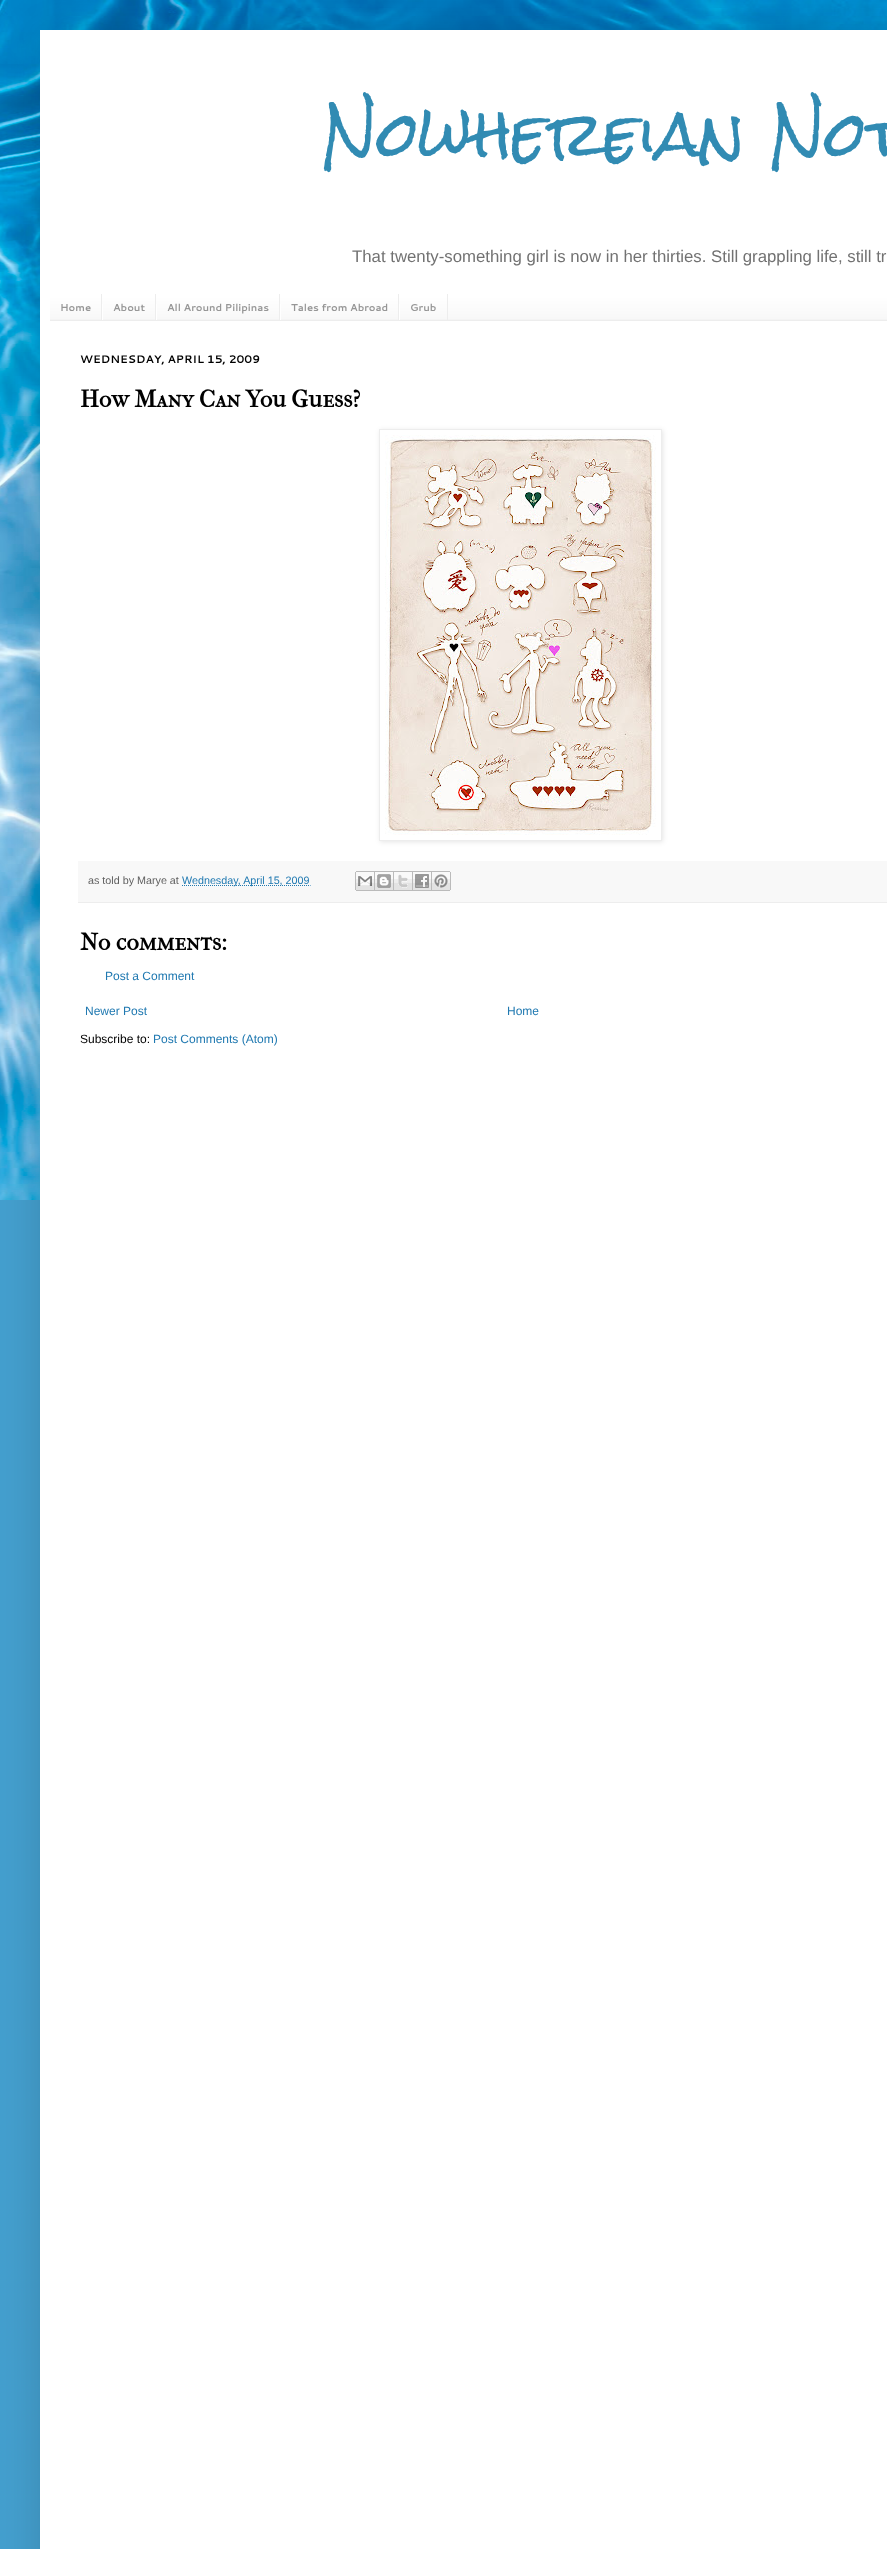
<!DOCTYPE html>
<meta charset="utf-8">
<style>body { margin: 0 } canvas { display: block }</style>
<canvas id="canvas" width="887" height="2549"></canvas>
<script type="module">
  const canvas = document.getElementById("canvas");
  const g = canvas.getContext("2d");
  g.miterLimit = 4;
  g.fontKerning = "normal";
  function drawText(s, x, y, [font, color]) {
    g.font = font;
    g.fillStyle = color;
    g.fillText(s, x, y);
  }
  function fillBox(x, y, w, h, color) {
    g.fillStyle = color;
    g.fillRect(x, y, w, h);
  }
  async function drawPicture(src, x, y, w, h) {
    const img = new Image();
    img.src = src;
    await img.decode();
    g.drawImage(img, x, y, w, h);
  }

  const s1 = ["60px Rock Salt", "#318BB3"];
  const s2 = ["16.8px Liberation Sans", "#727272"];
  const s3 = ["bold 10px Cantarell", "#969696"];
  const s4 = ["bold 11px Cantarell", "#000000"];
  const s5 = ["bold 24px IM FELL French Canon SC", "#000000"];
  const s6 = ["10.75px Liberation Sans", "#5F5F5F"];
  const s7 = ["10.75px Liberation Sans", "#2079B1"];
  const s8 = ["12px Liberation Sans", "#2079B1"];
  const s9 = ["12px Liberation Sans", "#000000"];

  fillBox(0, 0, 887, 2549, "#449FCE");
  await drawPicture("pic1.png", 0, 400, 40, 800);
  await drawPicture("pic2.png", 0, 0, 887, 400);
  g.fillStyle = "rgba(0, 0, 0, 0.15)";
  g.filter = "blur(20px)";
  g.beginPath();
  g.rect(40, 30, 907, 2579);
  g.fill();
  g.filter = "none";
  fillBox(40, 30, 847, 2519, "#FFFFFF");
  drawText("Nowhereian Not", 322, 158, s1);
  drawText("That twenty-something girl is now in her thirties. Still grappling life, still tr", 352, 262, s2);
  fillBox(50, 295, 837, 25, "#F4F4F4");
  await drawPicture("pic3.png", 50, 294, 837, 25);
  fillBox(50, 320, 837, 1, "#EDEDED");
  fillBox(101, 294, 1, 26, "#EDEDED");
  drawText("Home", 60, 311, s3);
  fillBox(155, 294, 1, 26, "#EDEDED");
  fillBox(102, 304, 1, 16, "#FFFFFF");
  drawText("About", 113, 311, s3);
  fillBox(279, 294, 1, 26, "#EDEDED");
  fillBox(156, 304, 1, 16, "#FFFFFF");
  drawText("All Around Pilipinas", 167, 311, s3);
  fillBox(398, 294, 1, 26, "#EDEDED");
  fillBox(280, 304, 1, 16, "#FFFFFF");
  drawText("Tales from Abroad", 291, 311, s3);
  fillBox(447, 294, 1, 26, "#EDEDED");
  fillBox(399, 304, 1, 16, "#FFFFFF");
  drawText("Grub", 410, 311, s3);
  drawText("WEDNESDAY, APRIL 15, 2009", 80, 363, s4);
  drawText("How Many Can You Guess?", 80, 407, s5);
  g.save();
  g.beginPath();
  g.moveTo(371, 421);
  g.lineTo(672, 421);
  g.lineTo(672, 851);
  g.lineTo(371, 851);
  g.closePath();
  g.moveTo(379, 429);
  g.lineTo(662, 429);
  g.lineTo(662, 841);
  g.lineTo(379, 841);
  g.closePath();
  g.clip("evenodd");
  g.fillStyle = "rgba(0, 0, 0, 0.1)";
  g.filter = "blur(2.5px)";
  g.beginPath();
  g.rect(380, 430, 283, 412);
  g.fill();
  g.filter = "none";
  g.restore();
  g.strokeStyle = "#EDEDED";
  g.strokeRect(379.5, 429.5, 282, 411);
  await drawPicture("pic4.png", 385, 435, 271, 400);
  fillBox(78, 861, 809, 41, "#F8F8F8");
  fillBox(78, 902, 809, 1, "#EDEDED");
  drawText("as told by Marye at", 88, 884, s6);
  g.beginPath();
  g.moveTo(182, 885.5);
  g.lineTo(310.5, 885.5);
  g.strokeStyle = "#2079B1";
  g.setLineDash([1, 1]);
  g.stroke();
  drawText("Wednesday, April 15, 2009", 182, 884, s7);
  await drawPicture("pic5.png", 355, 871, 20, 20);
  await drawPicture("pic6.png", 375, 871, 19, 20);
  await drawPicture("pic7.png", 394, 871, 19, 20);
  await drawPicture("pic8.png", 413, 871, 19, 20);
  await drawPicture("pic9.png", 432, 871, 19, 20);
  drawText("No comments:", 80, 950, s5);
  drawText("Post a Comment", 105, 980, s8);
  drawText("Newer Post", 85, 1015, s8);
  drawText("Home", 507, 1015, s8);
  drawText("Subscribe to:", 80, 1043, s9);
  drawText("Post Comments (Atom)", 153, 1043, s8);
</script>
